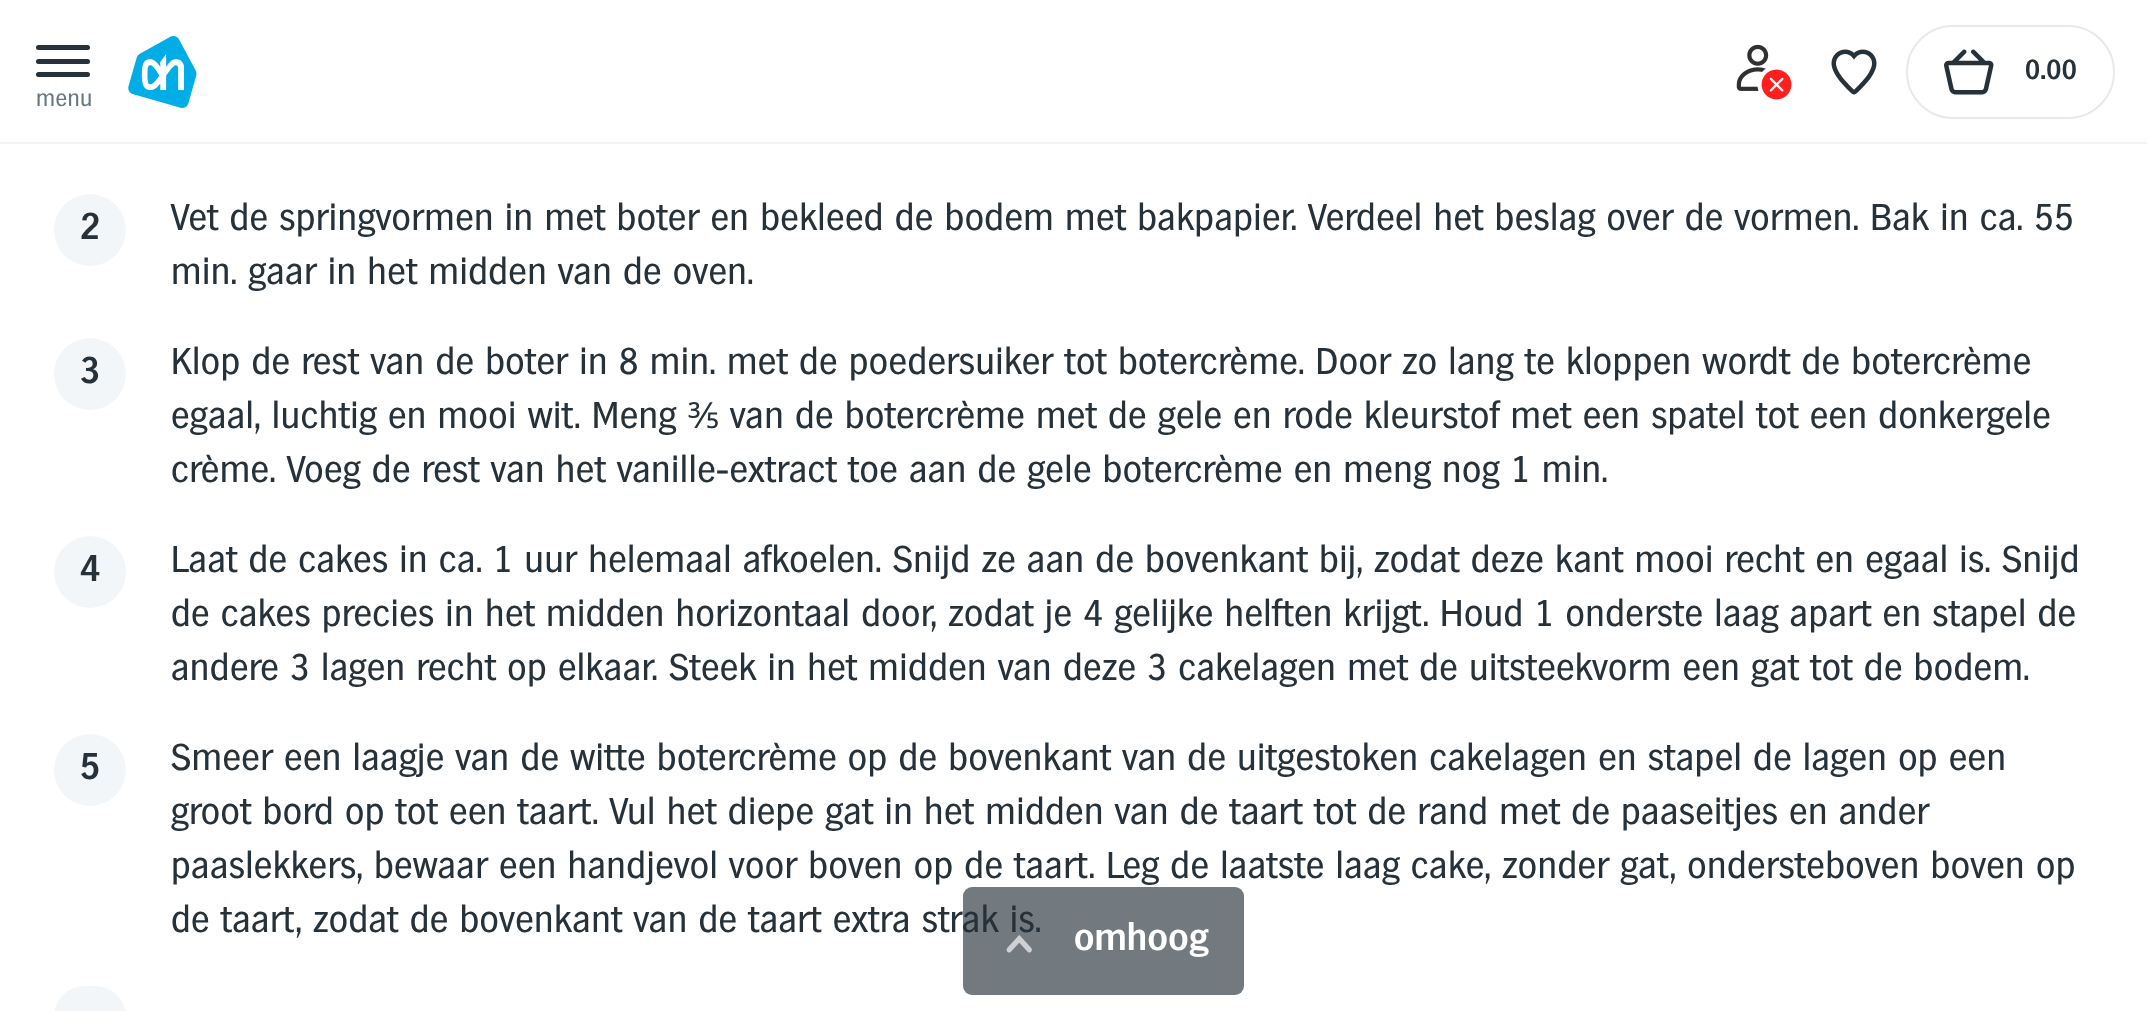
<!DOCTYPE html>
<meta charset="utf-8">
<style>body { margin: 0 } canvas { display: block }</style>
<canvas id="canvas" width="2147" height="1011"></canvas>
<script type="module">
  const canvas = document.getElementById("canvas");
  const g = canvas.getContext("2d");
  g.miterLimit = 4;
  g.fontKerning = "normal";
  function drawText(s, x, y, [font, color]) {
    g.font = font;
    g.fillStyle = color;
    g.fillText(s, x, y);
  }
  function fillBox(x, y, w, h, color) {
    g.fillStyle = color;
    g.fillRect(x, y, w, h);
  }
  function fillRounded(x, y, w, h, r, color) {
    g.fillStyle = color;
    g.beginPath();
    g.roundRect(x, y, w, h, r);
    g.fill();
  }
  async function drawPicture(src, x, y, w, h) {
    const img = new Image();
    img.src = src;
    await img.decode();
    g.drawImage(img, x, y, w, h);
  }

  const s1 = ["bold 27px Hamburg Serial", "#26313A"];
  const s2 = ["22.5px Hamburg Serial", "#647887"];
  const s3 = ["bold 36px Hamburg Serial", "#26313A"];
  const s4 = ["36px Hamburg Serial", "#26313A"];
  const s5 = ["36px Noto Sans", "#26313A"];
  const s6 = ["bold 36px Hamburg Serial", "#FFFFFF"];

  fillBox(0, 0, 2147, 1011, "#FFFFFF");
  await drawPicture("pic1.png", 128, 36, 69, 72);
  await drawPicture("pic2.png", 1736, 44, 56, 56);
  await drawPicture("pic3.png", 1831, 49, 46, 46);
  g.beginPath();
  g.roundRect(1907, 26, 207, 92, 46);
  g.strokeStyle = "#E6E9ED";
  g.lineWidth = 2;
  g.stroke();
  await drawPicture("pic4.png", 1944, 49, 50, 46);
  g.letterSpacing = "0.43px";
  drawText("0.00", 2025, 79, s1);
  fillRounded(36, 45, 54, 5, 2.5, "#26313A");
  fillRounded(36, 59, 54, 5, 2.5, "#26313A");
  fillRounded(36, 72, 54, 5, 2.5, "#26313A");
  drawText("menu", 36, 106, s2);
  fillBox(0, 142, 2147, 2, "#F3F4F6");
  g.fillStyle = "#F3F6F8";
  g.beginPath();
  g.arc(90, 230, 36, 0, Math.PI * 2);
  g.fill();
  g.letterSpacing = "0px";
  drawText("2", 80, 239, s3);
  g.letterSpacing = "0.43px";
  drawText("Vet de springvormen in met boter en bekleed de bodem met bakpapier. Verdeel het beslag over de vormen. Bak in ca. 55", 171, 230, s4);
  drawText("min. gaar in het midden van de oven.", 171, 284, s4);
  g.fillStyle = "#F3F6F8";
  g.beginPath();
  g.arc(90, 374, 36, 0, Math.PI * 2);
  g.fill();
  g.letterSpacing = "0px";
  drawText("3", 80, 383, s3);
  g.letterSpacing = "0.43px";
  drawText("Klop de rest van de boter in 8 min. met de poedersuiker tot botercrème. Door zo lang te kloppen wordt de botercrème", 171, 374, s4);
  drawText("egaal, luchtig en mooi wit. Meng", 171, 428, s4);
  drawText("⅗", 688, 428, s5);
  drawText("van de botercrème met de gele en rode kleurstof met een spatel tot een donkergele", 730, 428, s4);
  drawText("crème. Voeg de rest van het vanille-extract toe aan de gele botercrème en meng nog 1 min.", 171, 482, s4);
  g.fillStyle = "#F3F6F8";
  g.beginPath();
  g.arc(90, 572, 36, 0, Math.PI * 2);
  g.fill();
  g.letterSpacing = "0px";
  drawText("4", 80, 581, s3);
  g.letterSpacing = "0.43px";
  drawText("Laat de cakes in ca. 1 uur helemaal afkoelen. Snijd ze aan de bovenkant bij, zodat deze kant mooi recht en egaal is. Snijd", 171, 572, s4);
  drawText("de cakes precies in het midden horizontaal door, zodat je 4 gelijke helften krijgt. Houd 1 onderste laag apart en stapel de", 171, 626, s4);
  drawText("andere 3 lagen recht op elkaar. Steek in het midden van deze 3 cakelagen met de uitsteekvorm een gat tot de bodem.", 171, 680, s4);
  g.fillStyle = "#F3F6F8";
  g.beginPath();
  g.arc(90, 770, 36, 0, Math.PI * 2);
  g.fill();
  g.letterSpacing = "0px";
  drawText("5", 80, 779, s3);
  g.letterSpacing = "0.43px";
  drawText("Smeer een laagje van de witte botercrème op de bovenkant van de uitgestoken cakelagen en stapel de lagen op een", 171, 770, s4);
  drawText("groot bord op tot een taart. Vul het diepe gat in het midden van de taart tot de rand met de paaseitjes en ander", 171, 824, s4);
  drawText("paaslekkers, bewaar een handjevol voor boven op de taart. Leg de laatste laag cake, zonder gat, ondersteboven boven op", 171, 878, s4);
  drawText("de taart, zodat de bovenkant van de taart extra strak is.", 171, 932, s4);
  fillRounded(54, 986, 72, 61, 36, "#F3F6F8");
  fillRounded(963, 887, 281, 108, 9, "rgba(38, 49, 58, 0.65)");
  await drawPicture("pic5.png", 1006, 935, 26, 18);
  drawText("omhoog", 1074, 950, s6);
</script>
